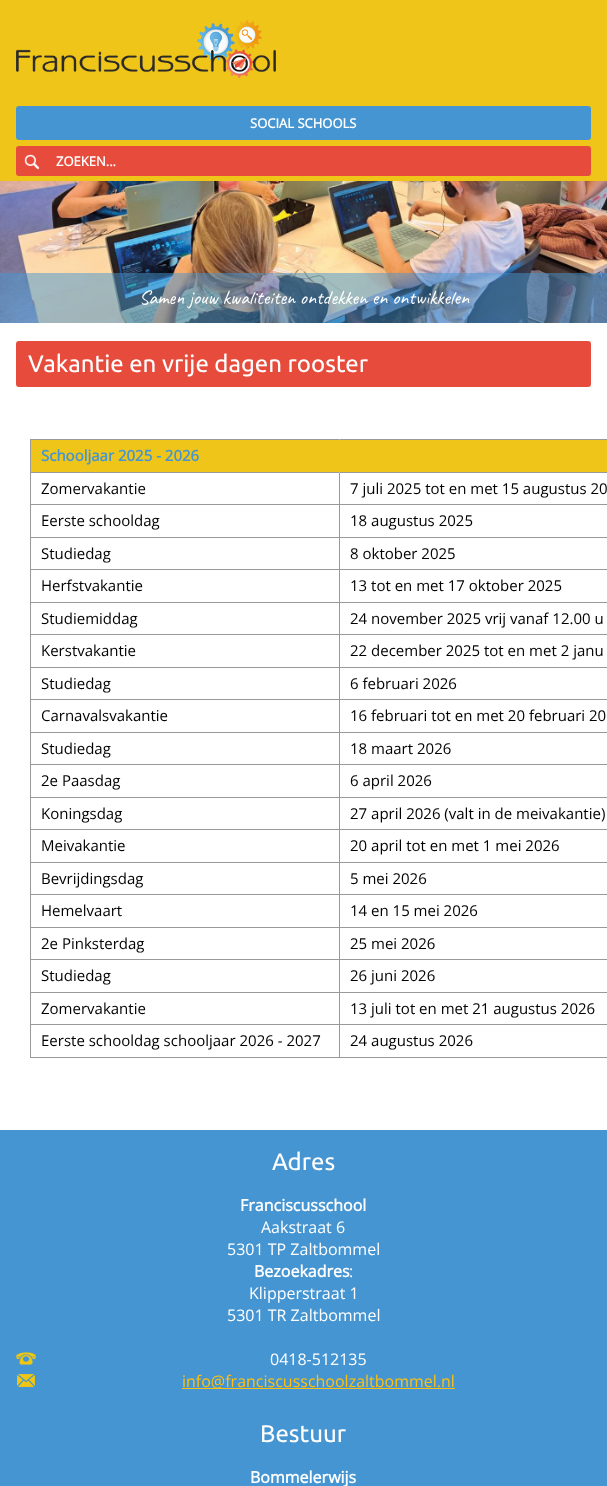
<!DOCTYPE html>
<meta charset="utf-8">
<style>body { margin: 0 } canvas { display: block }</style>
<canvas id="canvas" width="607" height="1486"></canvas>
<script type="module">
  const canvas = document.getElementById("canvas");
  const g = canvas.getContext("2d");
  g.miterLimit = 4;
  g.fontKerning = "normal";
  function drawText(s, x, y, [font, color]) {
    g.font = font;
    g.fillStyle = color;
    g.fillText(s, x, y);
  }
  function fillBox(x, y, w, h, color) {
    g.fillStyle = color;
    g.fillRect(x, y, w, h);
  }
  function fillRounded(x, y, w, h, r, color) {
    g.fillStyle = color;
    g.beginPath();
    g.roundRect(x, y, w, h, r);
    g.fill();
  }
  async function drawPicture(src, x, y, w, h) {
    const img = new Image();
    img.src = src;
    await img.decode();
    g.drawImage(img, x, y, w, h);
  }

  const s1 = ["bold 13px Open Sans", "#FFFFFF"];
  const s2 = ["20px Caveat", "#FFFFFF"];
  const s3 = ["24px Ubuntu", "#FFFFFF"];
  const s4 = ["bold 15px Open Sans", "#4595D2"];
  const s5 = ["15px Open Sans", "#000000"];
  const s6 = ["bold 16px Open Sans", "#FFFFFF"];
  const s7 = ["16px Open Sans", "#FFFFFF"];
  const s8 = ["16px Open Sans", "#FFC010"];

  fillBox(0, 0, 607, 1486, "#FFFFFF");
  fillBox(0, 0, 607, 181, "#EFC519");
  await drawPicture("pic1.png", 16, 20, 260, 58);
  fillRounded(16, 106, 575, 34, 3, "#4595D2");
  drawText("SOCIAL SCHOOLS", 250, 128, s1);
  fillRounded(16, 146, 575, 30, 3, "#E74B3C");
  await drawPicture("pic2.png", 24, 154, 16, 16);
  drawText("ZOEKEN...", 56, 166, s1);
  await drawPicture("pic3.png", 0, 181, 607, 142);
  fillBox(0, 273, 607, 50, "rgba(69, 149, 210, 0.5)");
  drawText("Samen jouw kwaliteiten ontdekken en ontwikkelen", 139, 304, s2);
  fillRounded(16, 341, 575, 46, 3, "#E74B3C");
  drawText("Vakantie en vrije dagen rooster", 28, 372, s3);
  fillBox(31, 440, 576, 32, "#EFC519");
  fillBox(30, 439, 577, 1, "#999999");
  fillBox(30, 472, 577, 1, "#999999");
  fillBox(30, 504, 577, 1, "#999999");
  fillBox(30, 537, 577, 1, "#999999");
  fillBox(30, 569, 577, 1, "#999999");
  fillBox(30, 602, 577, 1, "#999999");
  fillBox(30, 634, 577, 1, "#999999");
  fillBox(30, 667, 577, 1, "#999999");
  fillBox(30, 699, 577, 1, "#999999");
  fillBox(30, 732, 577, 1, "#999999");
  fillBox(30, 764, 577, 1, "#999999");
  fillBox(30, 797, 577, 1, "#999999");
  fillBox(30, 829, 577, 1, "#999999");
  fillBox(30, 862, 577, 1, "#999999");
  fillBox(30, 894, 577, 1, "#999999");
  fillBox(30, 927, 577, 1, "#999999");
  fillBox(30, 959, 577, 1, "#999999");
  fillBox(30, 992, 577, 1, "#999999");
  fillBox(30, 1024, 577, 1, "#999999");
  fillBox(30, 1057, 577, 1, "#999999");
  fillBox(30, 1024, 1, 34, "#999999");
  fillBox(30, 992, 1, 33, "#999999");
  fillBox(30, 959, 1, 34, "#999999");
  fillBox(30, 927, 1, 33, "#999999");
  fillBox(30, 894, 1, 34, "#999999");
  fillBox(30, 862, 1, 33, "#999999");
  fillBox(30, 829, 1, 34, "#999999");
  fillBox(30, 797, 1, 33, "#999999");
  fillBox(30, 764, 1, 34, "#999999");
  fillBox(30, 732, 1, 33, "#999999");
  fillBox(30, 699, 1, 34, "#999999");
  fillBox(30, 667, 1, 33, "#999999");
  fillBox(30, 634, 1, 34, "#999999");
  fillBox(30, 602, 1, 33, "#999999");
  fillBox(30, 569, 1, 34, "#999999");
  fillBox(30, 537, 1, 33, "#999999");
  fillBox(30, 504, 1, 34, "#999999");
  fillBox(30, 472, 1, 33, "#999999");
  fillBox(30, 439, 1, 34, "#999999");
  fillBox(339, 472, 1, 586, "#999999");
  fillBox(339, 439, 1, 34, "#EFC519");
  drawText("Schooljaar 2025 - 2026", 41, 461, s4);
  drawText("Zomervakantie", 41, 494, s5);
  drawText("7 juli 2025 tot en met 15 augustus 20", 350, 494, s5);
  drawText("Eerste schooldag", 41, 526, s5);
  drawText("18 augustus 2025", 350, 526, s5);
  drawText("Studiedag", 41, 559, s5);
  drawText("8 oktober 2025", 350, 559, s5);
  drawText("Herfstvakantie", 41, 591, s5);
  drawText("13 tot en met 17 oktober 2025", 350, 591, s5);
  drawText("Studiemiddag", 41, 624, s5);
  drawText("24 november 2025 vrij vanaf 12.00 u", 350, 624, s5);
  drawText("Kerstvakantie", 41, 656, s5);
  drawText("22 december 2025 tot en met 2 janu", 350, 656, s5);
  drawText("Studiedag", 41, 689, s5);
  drawText("6 februari 2026", 350, 689, s5);
  drawText("Carnavalsvakantie", 41, 721, s5);
  drawText("16 februari tot en met 20 februari 20", 350, 721, s5);
  drawText("Studiedag", 41, 754, s5);
  drawText("18 maart 2026", 350, 754, s5);
  drawText("2e Paasdag", 41, 786, s5);
  drawText("6 april 2026", 350, 786, s5);
  drawText("Koningsdag", 41, 819, s5);
  drawText("27 april 2026 (valt in de meivakantie)", 350, 819, s5);
  drawText("Meivakantie", 41, 851, s5);
  drawText("20 april tot en met 1 mei 2026", 350, 851, s5);
  drawText("Bevrijdingsdag", 41, 884, s5);
  drawText("5 mei 2026", 350, 884, s5);
  drawText("Hemelvaart", 41, 916, s5);
  drawText("14 en 15 mei 2026", 350, 916, s5);
  drawText("2e Pinksterdag", 41, 949, s5);
  drawText("25 mei 2026", 350, 949, s5);
  drawText("Studiedag", 41, 981, s5);
  drawText("26 juni 2026", 350, 981, s5);
  drawText("Zomervakantie", 41, 1014, s5);
  drawText("13 juli tot en met 21 augustus 2026", 350, 1014, s5);
  drawText("Eerste schooldag schooljaar 2026 - 2027", 41, 1046, s5);
  drawText("24 augustus 2026", 350, 1046, s5);
  fillBox(0, 1130, 607, 356, "#4595D2");
  drawText("Adres", 272, 1170, s3);
  drawText("Franciscusschool", 240, 1211, s6);
  drawText("Aakstraat 6", 261, 1233, s7);
  drawText("5301 TP Zaltbommel", 227, 1255, s7);
  drawText("Bezoekadres", 254, 1277, s6);
  drawText(":", 349, 1277, s7);
  drawText("Klipperstraat 1", 249, 1299, s7);
  drawText("5301 TR Zaltbommel", 227, 1321, s7);
  await drawPicture("pic4.png", 16, 1352, 20, 13);
  drawText("0418-512135", 270, 1365, s7);
  await drawPicture("pic5.png", 17, 1374, 18, 13);
  fillBox(182, 1388, 273, 1, "#FFC010");
  drawText("info@franciscusschoolzaltbommel.nl", 182, 1387, s8);
  drawText("Bestuur", 260, 1442, s3);
  drawText("Bommelerwijs", 250, 1483, s6);
</script>
